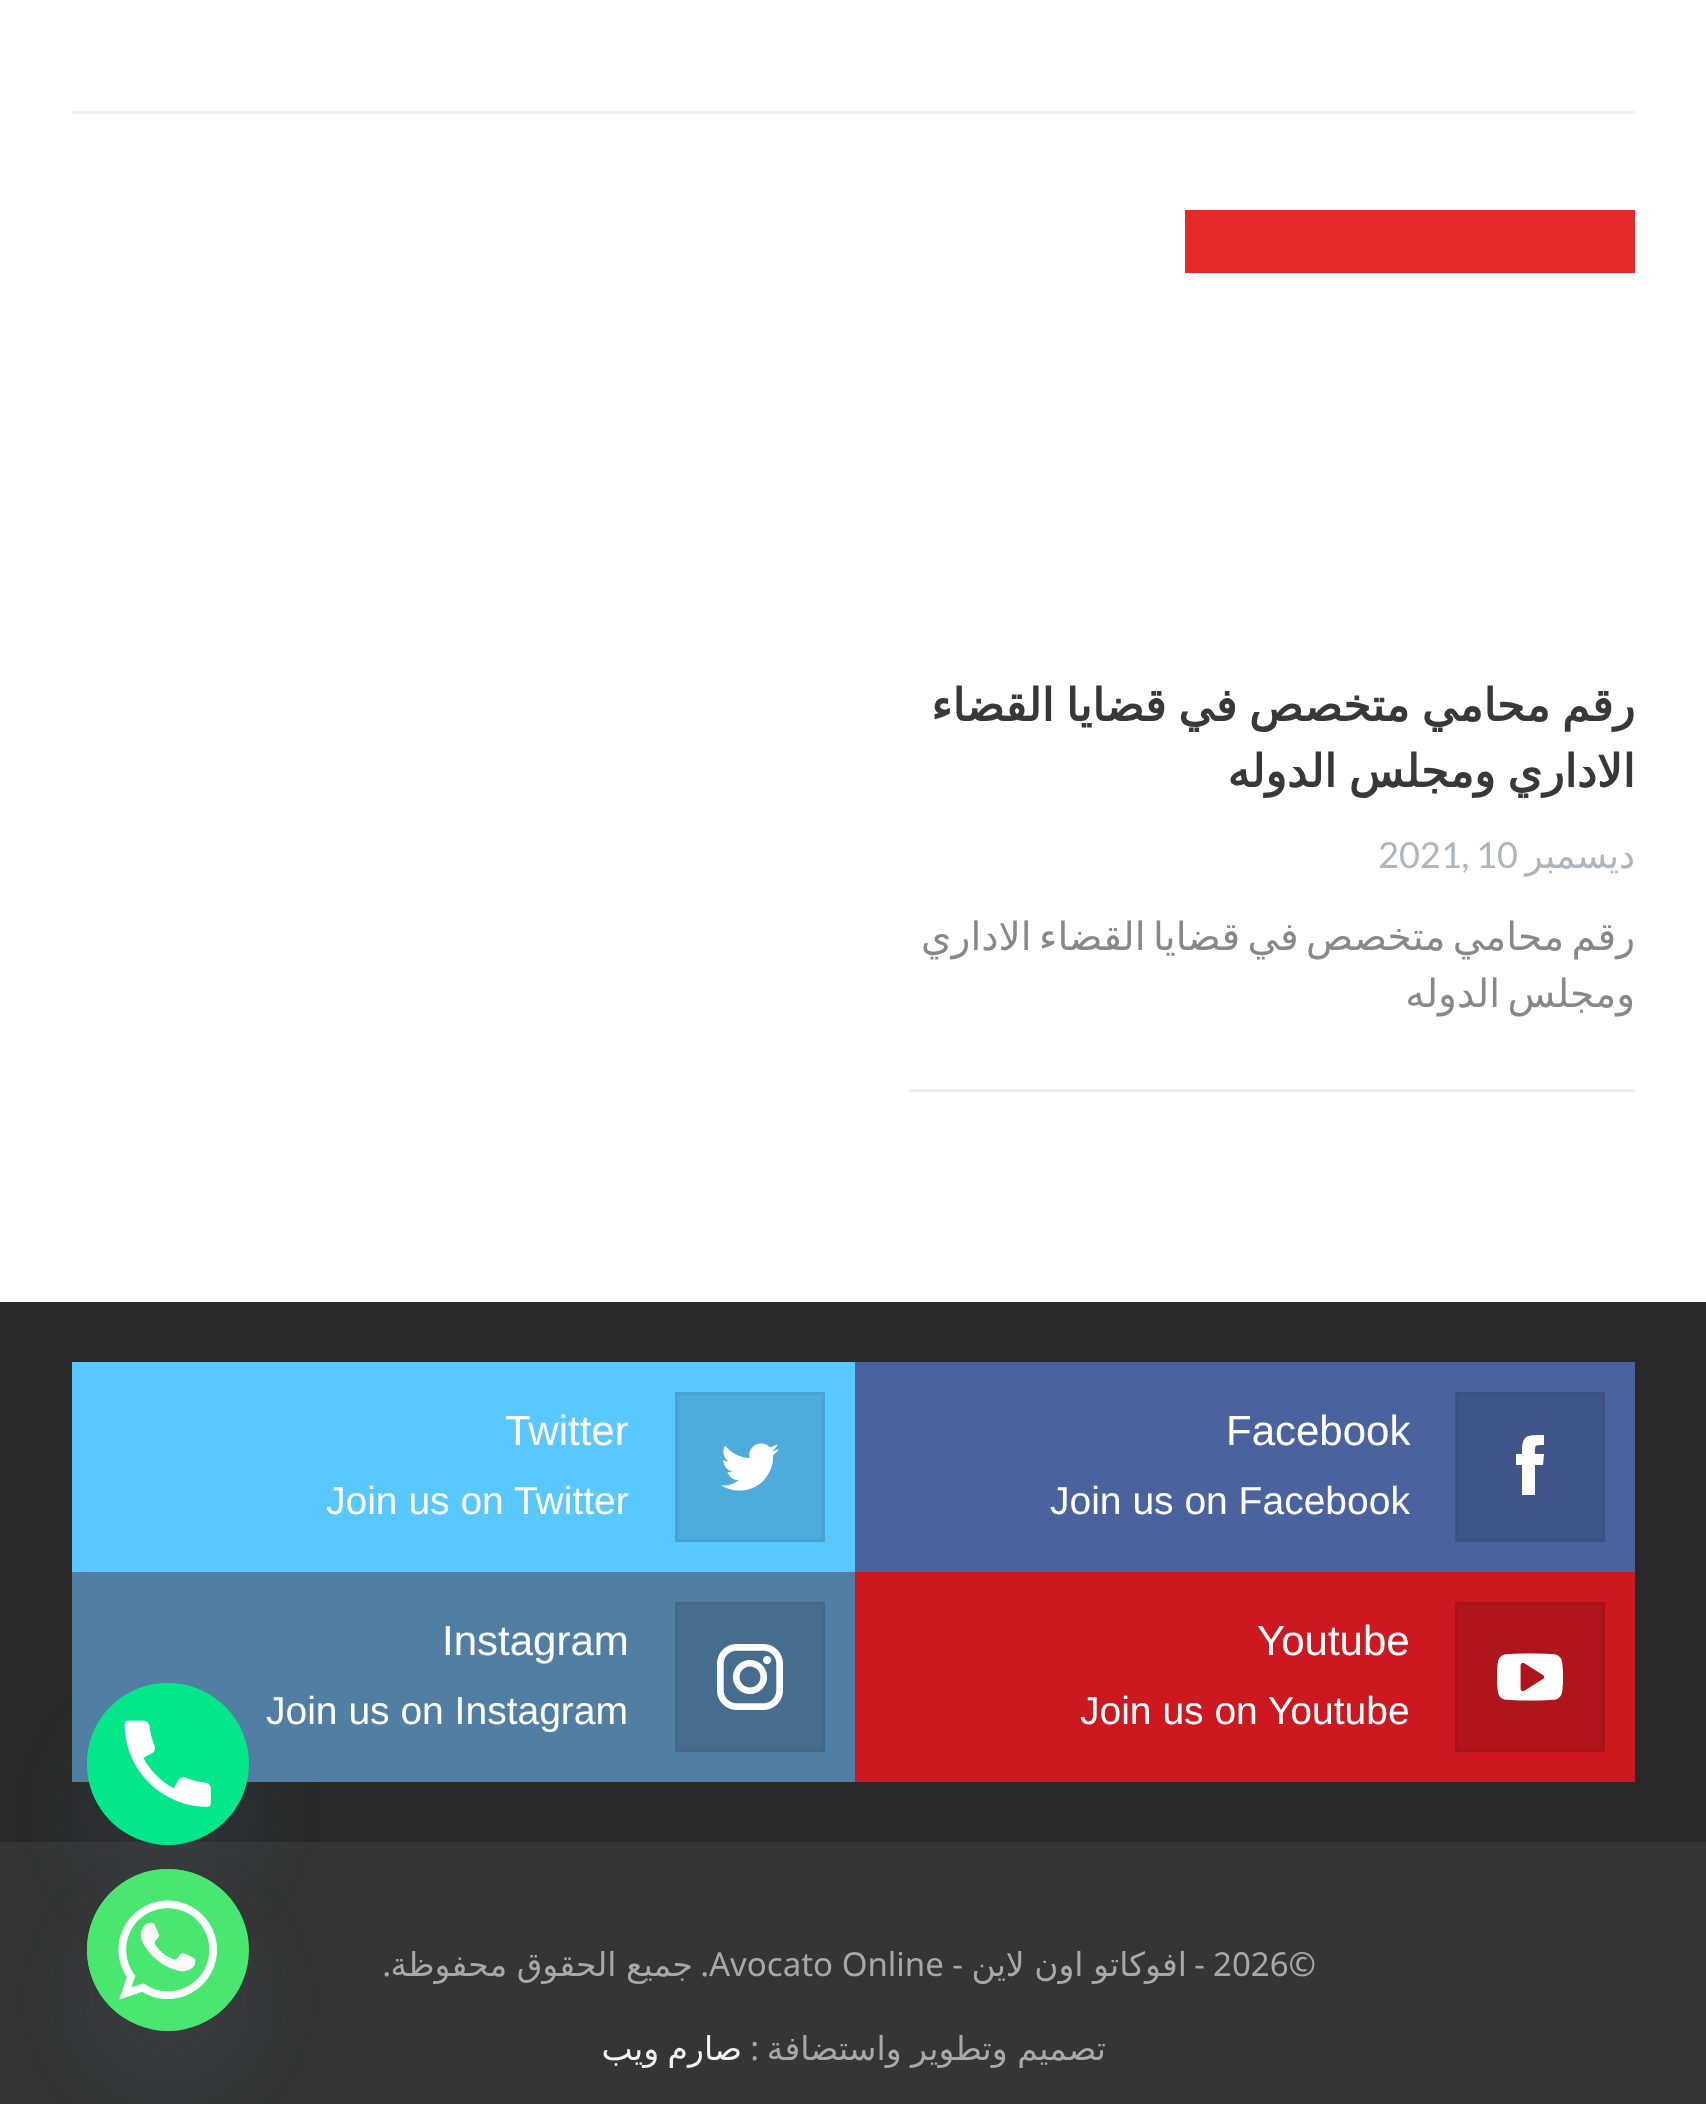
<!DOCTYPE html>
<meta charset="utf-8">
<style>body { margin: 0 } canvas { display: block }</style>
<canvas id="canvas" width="1706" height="2104"></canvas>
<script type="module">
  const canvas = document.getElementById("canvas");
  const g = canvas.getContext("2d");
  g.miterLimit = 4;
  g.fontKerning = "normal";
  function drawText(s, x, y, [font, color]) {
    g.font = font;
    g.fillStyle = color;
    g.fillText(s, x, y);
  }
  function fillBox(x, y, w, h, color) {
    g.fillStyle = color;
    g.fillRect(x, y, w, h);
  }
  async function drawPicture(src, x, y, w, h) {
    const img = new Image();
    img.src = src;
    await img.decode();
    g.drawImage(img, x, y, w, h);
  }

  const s1 = ["bold 45px DejaVu Sans", "#383838"];
  const s2 = ["36px DejaVu Sans", "#ADB5BD"];
  const s3 = ["36px Lato", "#ADB5BD"];
  const s4 = ["39px DejaVu Sans", "#888888"];
  const s5 = ["42px Liberation Sans", "#FFFFFF"];
  const s6 = ["39px Liberation Sans", "#FFFFFF"];
  const s7 = ["33px Noto Sans", "#A8A8A8"];
  const s8 = ["33px DejaVu Sans", "#A8A8A8"];
  const s9 = ["33px DejaVu Sans", "#F3F3F3"];

  fillBox(0, 0, 1706, 2104, "#FFFFFF");
  fillBox(72, 111, 1563, 3, "#F0F0F0");
  fillBox(1185, 210, 450, 63, "#E62929");
  g.wordSpacing = "-2.5px";
  g.direction = "rtl";
  drawText("رقم محامي متخصص في قضايا القضاء", 1635, 721, s1);
  drawText("الاداري ومجلس الدوله", 1635, 787, s1);
  g.wordSpacing = "0px";
  drawText("ديسمبر", 1635, 868, s2);
  g.direction = "ltr";
  drawText("2021, 10", 1378, 868, s3);
  fillBox(909, 1089, 726, 3, "#EDEDED");
  g.wordSpacing = "-5px";
  g.direction = "rtl";
  drawText("رقم محامي متخصص في قضايا القضاء الاداري", 1635, 950, s4);
  drawText("ومجلس الدوله", 1635, 1007, s4);
  fillBox(0, 1302, 1706, 540, "#292929");
  fillBox(855, 1362, 780, 210, "#4A639F");
  g.fillStyle = "#405589";
  g.beginPath();
  g.rect(1456.5, 1393.5, 147, 147);
  g.fill();
  g.strokeStyle = "#3D5182";
  g.lineWidth = 3;
  g.stroke();
  g.fillStyle = "#FFFFFF";
  g.beginPath();
  g.moveTo(1535, 1454);
  g.bezierCurveTo(1535, 1445, 1534, 1445, 1544, 1445);
  g.lineTo(1544, 1435);
  g.bezierCurveTo(1525, 1435, 1522, 1435, 1522, 1454);
  g.lineTo(1516, 1454);
  g.lineTo(1516, 1465);
  g.lineTo(1522, 1465);
  g.lineTo(1522, 1495);
  g.lineTo(1535, 1495);
  g.lineTo(1535, 1465);
  g.lineTo(1543, 1465);
  g.lineTo(1544, 1454);
  g.closePath();
  g.fill();
  g.wordSpacing = "0px";
  g.direction = "ltr";
  drawText("Facebook", 1226, 1445, s5);
  drawText("Join us on Facebook", 1050, 1514, s6);
  fillBox(72, 1362, 783, 210, "#59C8FF");
  g.fillStyle = "#4DACDB";
  g.beginPath();
  g.rect(676.5, 1393.5, 147, 147);
  g.fill();
  g.strokeStyle = "#49A3D0";
  g.stroke();
  await drawPicture("pic1.png", 721, 1443, 58, 48);
  drawText("Twitter", 505, 1445, s5);
  drawText("Join us on Twitter", 326, 1514, s6);
  fillBox(855, 1572, 780, 210, "#CC181E");
  g.fillStyle = "#AF151A";
  g.beginPath();
  g.rect(1456.5, 1603.5, 147, 147);
  g.fill();
  g.strokeStyle = "#A61419";
  g.stroke();
  await drawPicture("pic2.png", 1497, 1653, 66, 48);
  drawText("Youtube", 1257, 1655, s5);
  drawText("Join us on Youtube", 1080, 1724, s6);
  fillBox(72, 1572, 783, 210, "#517FA4");
  g.fillStyle = "#466D8D";
  g.beginPath();
  g.rect(676.5, 1603.5, 147, 147);
  g.fill();
  g.strokeStyle = "#436886";
  g.stroke();
  await drawPicture("pic3.png", 717, 1644, 66, 66);
  drawText("Instagram", 442, 1655, s5);
  drawText("Join us on Instagram", 266, 1724, s6);
  fillBox(0, 1842, 1706, 262, "#353535");
  drawText("2026©", 1213, 1976, s7);
  g.direction = "rtl";
  drawText("-", 1205, 1976, s7);
  g.wordSpacing = "-1px";
  drawText("افوكاتو اون لاين", 1187, 1976, s8);
  g.wordSpacing = "0px";
  drawText("-", 963, 1976, s7);
  g.direction = "ltr";
  drawText("Avocato Online", 709, 1976, s7);
  g.wordSpacing = "-1px";
  g.direction = "rtl";
  drawText("جميع الحقوق محفوظة", 693, 1976, s8);
  g.wordSpacing = "0px";
  drawText(".", 709, 1976, s7);
  drawText(".", 391, 1976, s7);
  g.wordSpacing = "-1px";
  drawText("تصميم وتطوير واستضافة", 1106, 2060, s8);
  g.wordSpacing = "0px";
  drawText(":", 759, 2060, s7);
  g.wordSpacing = "-2px";
  drawText("صارم ويب", 742, 2060, s9);
  g.fillStyle = "rgba(73, 104, 126, 0.16)";
  g.filter = "blur(36px)";
  g.beginPath();
  g.roundRect(87, 1731, 162, 162, 81);
  g.fill();
  g.filter = "none";
  g.fillStyle = "#03E78B";
  g.beginPath();
  g.arc(168, 1764, 81, 0, Math.PI * 2);
  g.fill();
  await drawPicture("pic4.png", 87, 1683, 137, 150);
  g.fillStyle = "rgba(73, 104, 126, 0.16)";
  g.filter = "blur(36px)";
  g.beginPath();
  g.roundRect(87, 1917, 162, 162, 81);
  g.fill();
  g.filter = "none";
  g.fillStyle = "#49E670";
  g.beginPath();
  g.arc(168, 1950, 81, 0, Math.PI * 2);
  g.fill();
  await drawPicture("pic5.png", 87, 1869, 146, 148);
</script>
